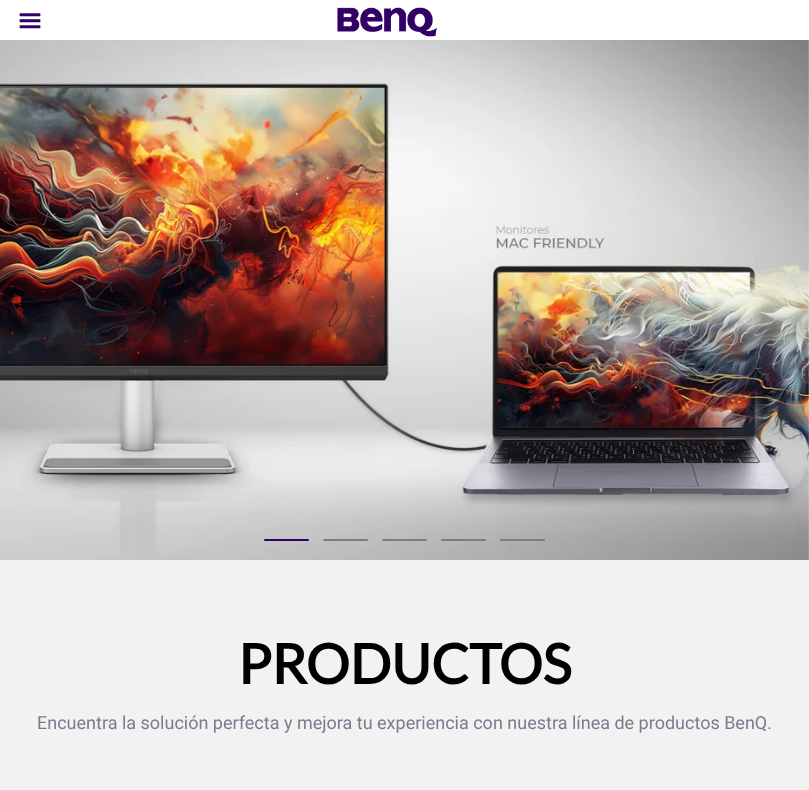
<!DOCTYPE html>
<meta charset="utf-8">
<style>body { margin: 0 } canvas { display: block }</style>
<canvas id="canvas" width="809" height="790"></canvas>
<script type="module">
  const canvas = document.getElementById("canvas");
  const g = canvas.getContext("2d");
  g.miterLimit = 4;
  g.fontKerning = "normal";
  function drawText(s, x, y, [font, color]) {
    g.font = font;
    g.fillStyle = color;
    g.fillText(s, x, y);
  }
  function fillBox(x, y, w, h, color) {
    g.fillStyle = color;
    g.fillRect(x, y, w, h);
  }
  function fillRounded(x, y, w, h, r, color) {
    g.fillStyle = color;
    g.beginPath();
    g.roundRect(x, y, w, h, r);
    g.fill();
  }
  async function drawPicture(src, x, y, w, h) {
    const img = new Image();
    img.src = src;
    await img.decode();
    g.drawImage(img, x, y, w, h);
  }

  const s1 = ["bold 55px Lato", "#000000"];
  const s2 = ["18px Roboto", "#7B7B8B"];

  fillBox(0, 0, 809, 790, "#F2F2F2");
  fillBox(0, 0, 809, 40, "#FFFFFF");
  await drawPicture("pic1.png", 19, 13, 22, 16);
  await drawPicture("pic2.png", 337, 7, 100, 30);
  await drawPicture("pic3.png", 0, 40, 809, 520);
  fillRounded(264, 539, 45, 2, 1, "#330066");
  fillRounded(323, 539, 45, 2, 1, "#7B7B8B");
  fillRounded(382, 539, 45, 2, 1, "#7B7B8B");
  fillRounded(441, 539, 45, 2, 1, "#7B7B8B");
  fillRounded(500, 539, 45, 2, 1, "#7B7B8B");
  drawText("PRODUCTOS", 238, 684, s1);
  drawText("Encuentra la solución perfecta y mejora tu experiencia con nuestra línea de productos BenQ.", 37, 729, s2);
</script>
